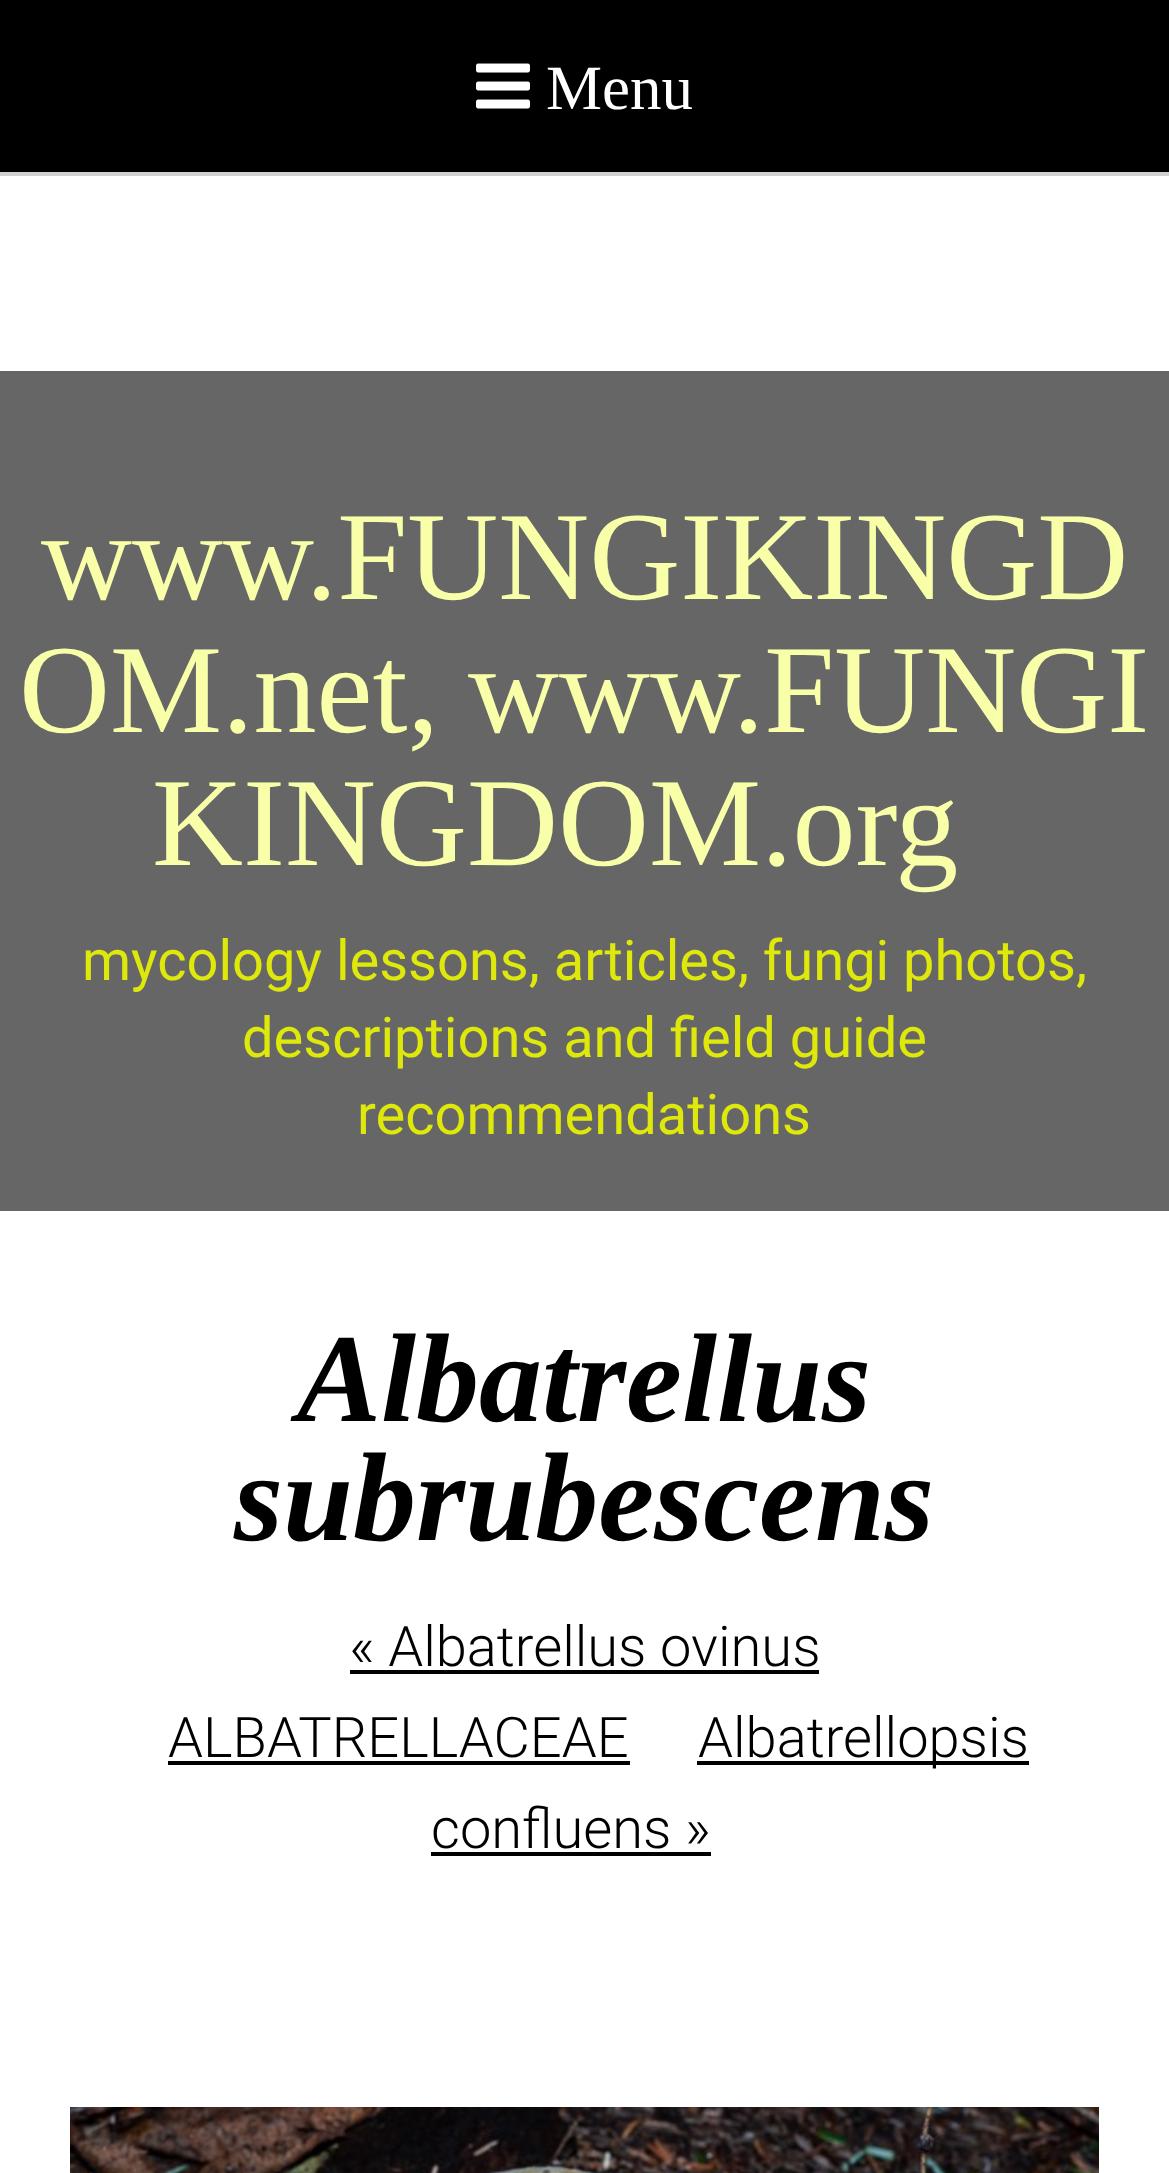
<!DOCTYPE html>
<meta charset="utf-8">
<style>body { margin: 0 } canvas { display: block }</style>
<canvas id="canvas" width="1169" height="2173"></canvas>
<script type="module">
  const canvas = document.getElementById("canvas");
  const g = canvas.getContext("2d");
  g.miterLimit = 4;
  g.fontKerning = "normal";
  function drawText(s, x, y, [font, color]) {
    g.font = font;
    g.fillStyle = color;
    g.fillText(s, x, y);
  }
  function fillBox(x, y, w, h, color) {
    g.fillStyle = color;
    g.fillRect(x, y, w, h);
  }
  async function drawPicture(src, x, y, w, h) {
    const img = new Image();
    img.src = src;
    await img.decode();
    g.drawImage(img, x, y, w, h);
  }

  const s1 = ["63px Liberation Serif", "#FFFFFF"];
  const s2 = ["126px Liberation Serif", "#F9FFA9"];
  const s3 = ["56px Roboto", "#DEE80B"];
  const s4 = ["italic bold 126px Liberation Serif", "#000000"];
  const s5 = ["300 56px Roboto", "#000000"];

  fillBox(0, 0, 1169, 2173, "#FFFFFF");
  fillBox(0, 0, 1169, 172, "#000000");
  fillBox(0, 172, 1169, 4, "#D0D0D0");
  await drawPicture("pic1.png", 476, 63, 54, 46);
  drawText("Menu", 546, 109, s1);
  fillBox(0, 371, 1169, 840, "#666666");
  drawText("www.FUNGIKINGD", 41, 599, s2);
  drawText("OM.net,", 19, 732, s2);
  drawText("www.FUNGI", 468, 732, s2);
  drawText("KINGDOM.org", 152, 865, s2);
  drawText("mycology lessons, articles, fungi photos,", 82, 980, s3);
  drawText("descriptions and field guide", 242, 1057, s3);
  drawText("recommendations", 357, 1134, s3);
  drawText("Albatrellus", 297, 1421, s4);
  drawText("subrubescens", 234, 1540, s4);
  drawText("« Albatrellus ovinus", 349, 1666, s5);
  fillBox(350, 1670, 469, 4, "#000000");
  drawText("ALBATRELLACEAE", 168, 1757, s5);
  fillBox(168, 1761, 462, 4, "#000000");
  fillBox(697, 1761, 332, 4, "#000000");
  drawText("Albatrellopsis", 698, 1757, s5);
  drawText("confluens »", 431, 1848, s5);
  fillBox(431, 1852, 280, 4, "#000000");
  await drawPicture("pic2.png", 70, 2107, 1029, 66);
</script>
